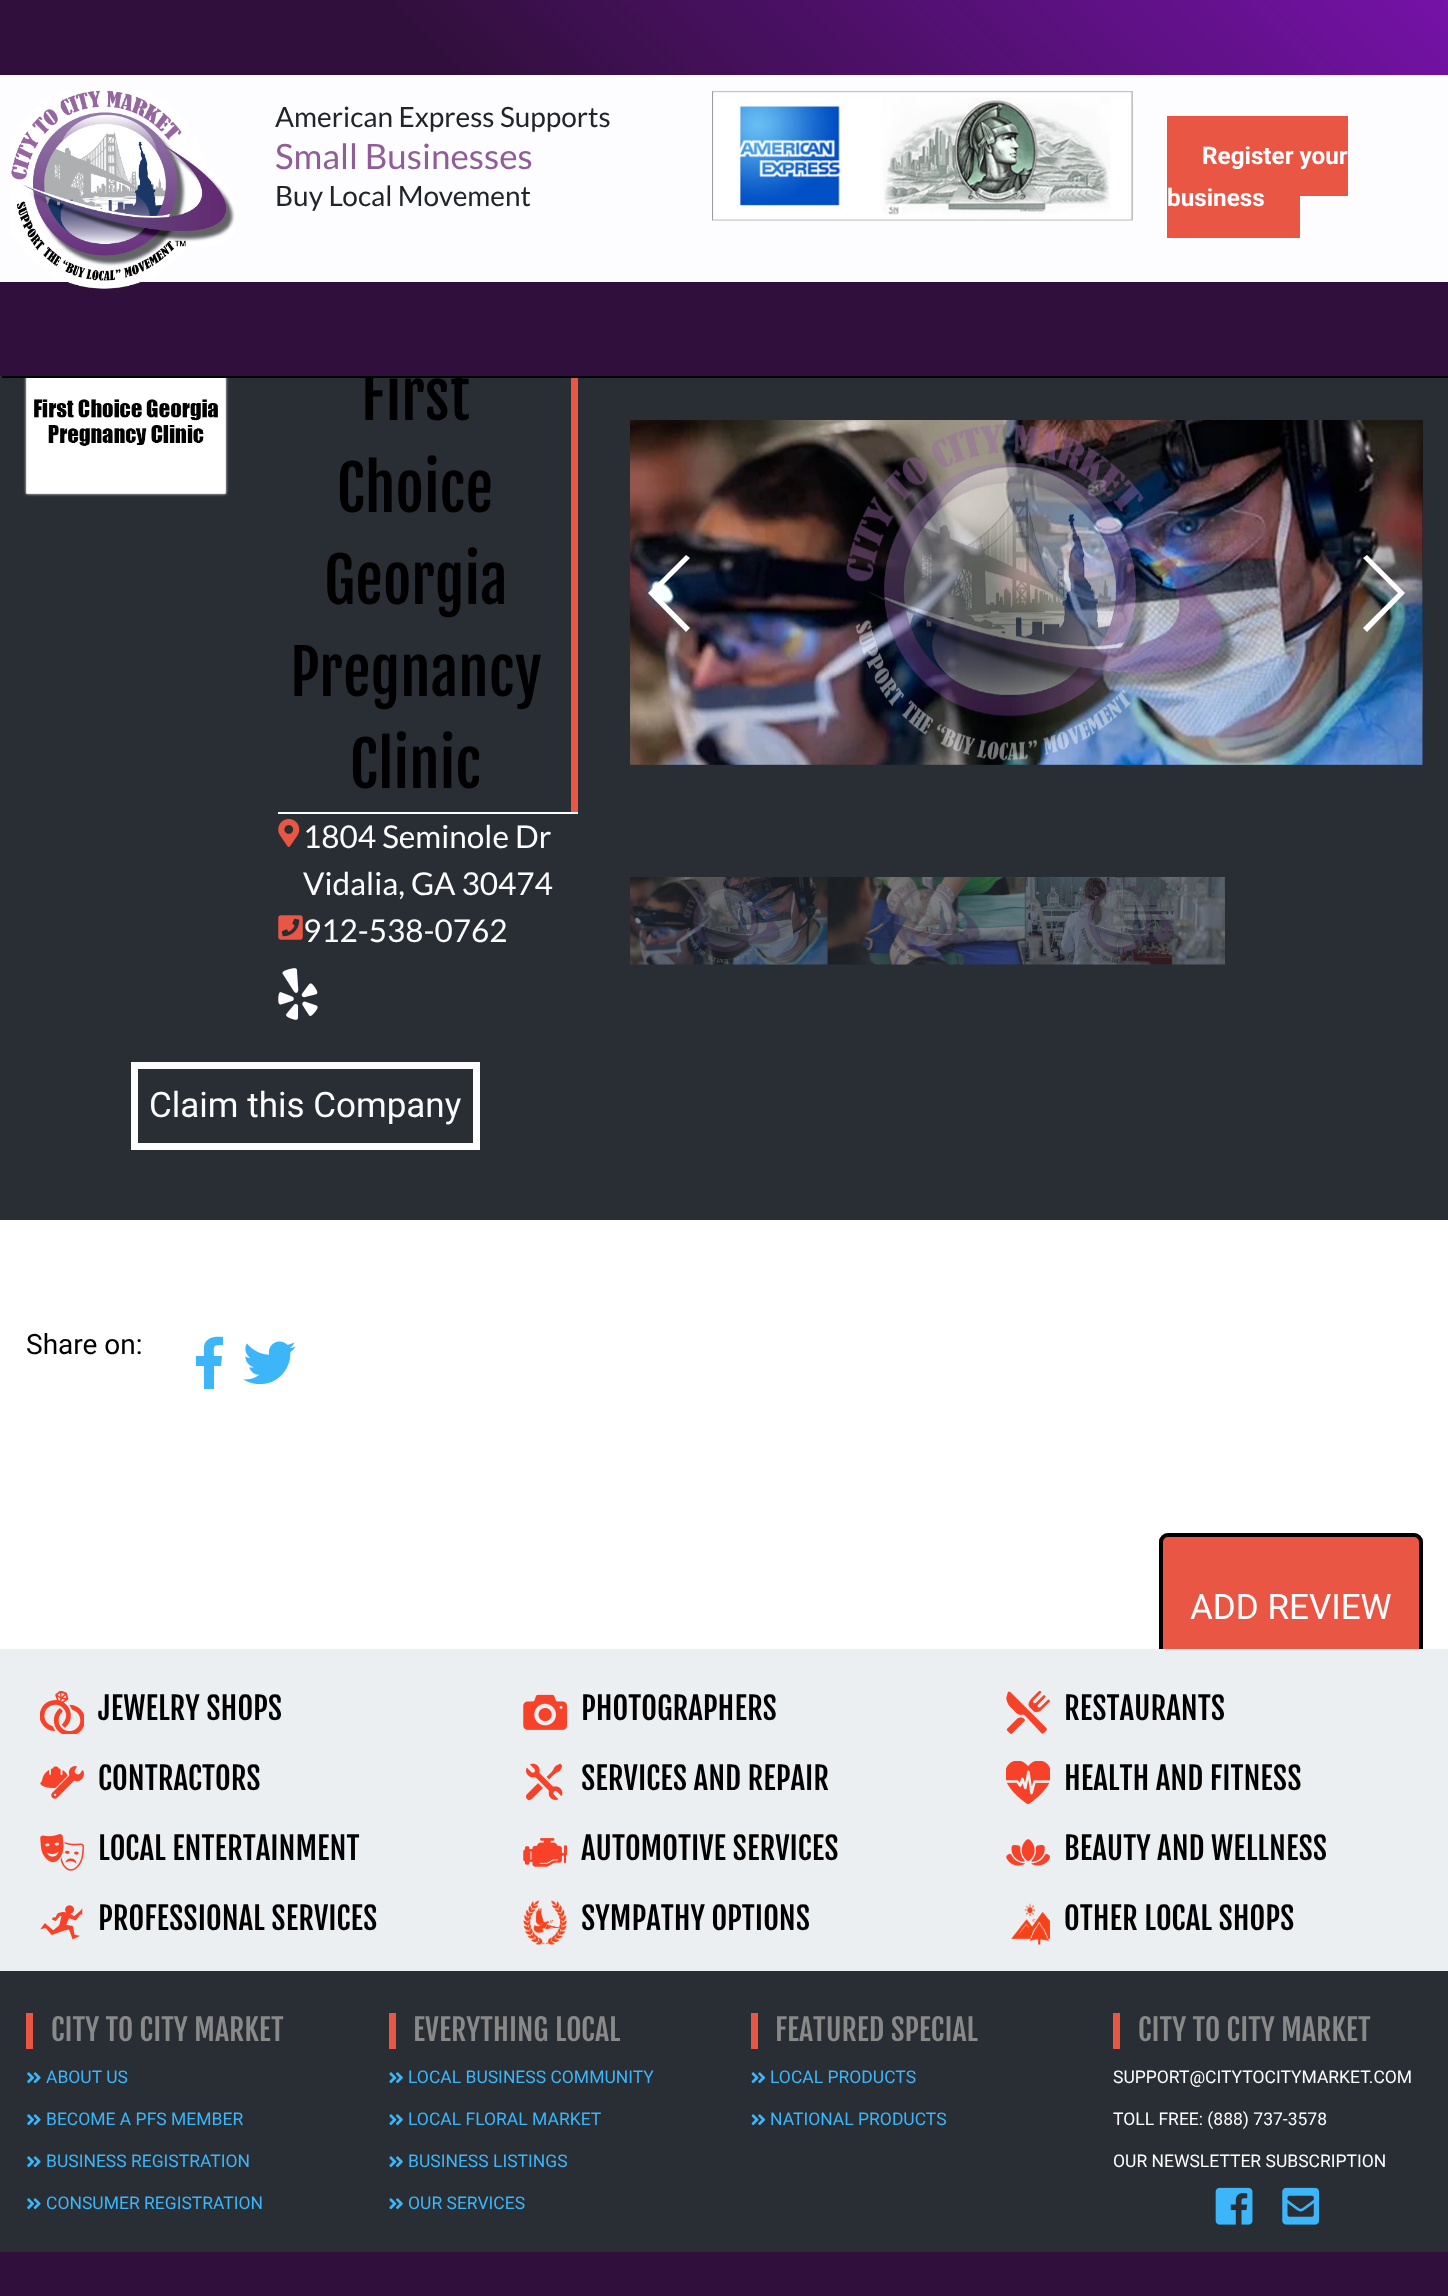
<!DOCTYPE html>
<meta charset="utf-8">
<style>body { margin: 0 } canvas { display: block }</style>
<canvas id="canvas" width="1448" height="2296"></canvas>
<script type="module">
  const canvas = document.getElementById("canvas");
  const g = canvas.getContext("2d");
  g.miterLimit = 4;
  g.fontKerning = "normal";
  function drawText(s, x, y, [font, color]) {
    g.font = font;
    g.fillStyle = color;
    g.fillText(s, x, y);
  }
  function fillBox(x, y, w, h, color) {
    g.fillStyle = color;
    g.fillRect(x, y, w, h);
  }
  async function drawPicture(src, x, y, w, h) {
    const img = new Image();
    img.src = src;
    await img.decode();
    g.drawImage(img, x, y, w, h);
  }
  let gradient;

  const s1 = ["61.25px Fjalla One", "#000000"];
  const s2 = ["28px Lato", "#212529"];
  const s3 = ["35px Lato", "#905D98"];
  const s4 = ["bold 24.25px Roboto", "#FDFCFE"];
  const s5 = ["31.5px Lato", "#FDFCFE"];
  const s6 = ["35px Roboto", "#FDFCFE"];
  const s7 = ["28px Roboto", "#000000"];
  const s8 = ["30.75px Fjalla One", "#000000"];
  const s9 = ["29.75px Fjalla One", "#898989"];
  const s10 = ["17.5px Roboto", "#3CB5F9"];
  const s11 = ["17.5px Roboto", "#FDFCFE"];

  fillBox(0, 0, 1448, 2296, "#FFFFFF");
  fillBox(0, 376, 1448, 844, "#282E34");
  g.fillStyle = "#000000";
  g.beginPath();
  g.moveTo(2, 376);
  g.lineTo(2, 378);
  g.lineTo(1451, 378);
  g.lineTo(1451, 2);
  g.lineTo(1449, 2);
  g.lineTo(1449, 376);
  g.closePath();
  g.fill();
  fillBox(0, 75, 1448, 207, "#FDFCFE");
  gradient = g.createLinearGradient(1106, -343, 343, 419);
  gradient.addColorStop(0, "#7512A8");
  gradient.addColorStop(0.7, "#310F3C");
  gradient.addColorStop(1, "#310F3C");
  g.fillStyle = gradient;
  g.fillRect(0, 0, 1448, 75);
  drawText("First", 361, 420, s1);
  fillBox(0, 282, 1448, 94, "#310F3C");
  await drawPicture("pic1.png", 11, 90, 224, 199);
  drawText("American Express Supports", 275, 127, s2);
  drawText("Small Businesses", 275, 169, s3);
  drawText("Buy Local Movement", 275, 206, s2);
  await drawPicture("pic2.png", 712, 90, 421, 131);
  fillBox(1167, 116, 181, 80, "#EA5644");
  drawText("Register your", 1202, 164, s4);
  fillBox(1167, 196, 133, 42, "#EA5644");
  drawText("business", 1167, 206, s4);
  await drawPicture("pic3.png", 23, 378, 206, 119);
  fillBox(571, 378, 7, 434, "#EA5644");
  drawText("Choice", 337, 512, s1);
  drawText("Georgia", 324, 604, s1);
  drawText("Pregnancy", 290, 696, s1);
  drawText("Clinic", 350, 788, s1);
  fillBox(278, 812, 300, 2, "#FDFCFE");
  await drawPicture("pic4.png", 278, 819, 22, 28);
  drawText("1804 Seminole Dr", 303, 848, s5);
  drawText("Vidalia, GA 30474", 303, 895, s5);
  await drawPicture("pic5.png", 278, 915, 25, 25);
  drawText("912-538-0762", 303, 942, s5);
  await drawPicture("pic6.png", 278, 968, 40, 52);
  g.strokeStyle = "#FDFCFE";
  g.lineWidth = 7;
  g.strokeRect(134.5, 1065.5, 342, 81);
  drawText("Claim this Company", 149, 1117, s6);
  await drawPicture("pic7.png", 630, 420, 793, 345);
  await drawPicture("pic8.png", 1422, 420, 1, 345);
  g.fillStyle = "#FFFFFF";
  g.beginPath();
  g.moveTo(648, 593);
  g.lineTo(686, 555);
  g.lineTo(690, 558);
  g.lineTo(655, 593);
  g.lineTo(690, 628);
  g.lineTo(686, 632);
  g.closePath();
  g.fill();
  g.beginPath();
  g.moveTo(1405, 593);
  g.lineTo(1367, 632);
  g.lineTo(1363, 628);
  g.lineTo(1398, 593);
  g.lineTo(1363, 558);
  g.lineTo(1367, 555);
  g.closePath();
  g.fill();
  await drawPicture("pic9.png", 630, 877, 198, 88);
  await drawPicture("pic10.png", 827, 877, 199, 88);
  await drawPicture("pic11.png", 1025, 877, 200, 88);
  drawText("Share on:", 26, 1354, s7);
  g.fillStyle = "#3CB5F9";
  g.beginPath();
  g.moveTo(204, 1389);
  g.lineTo(204, 1366);
  g.lineTo(196, 1366);
  g.lineTo(196, 1356);
  g.lineTo(204, 1356);
  g.lineTo(204, 1346);
  g.bezierCurveTo(206, 1337, 215, 1336, 223, 1337);
  g.lineTo(223, 1345);
  g.bezierCurveTo(212, 1345, 214, 1346, 214, 1356);
  g.lineTo(222, 1356);
  g.lineTo(221, 1366);
  g.lineTo(214, 1366);
  g.lineTo(214, 1389);
  g.closePath();
  g.fill();
  await drawPicture("pic12.png", 243, 1341, 53, 44);
  g.fillStyle = "#EA5644";
  g.beginPath();
  g.roundRect(1159, 1533, 264, 116, [9, 9, 0, 0]);
  g.fill();
  fillBox(0, 1649, 1448, 322, "#ECEFF1");
  g.save();
  g.beginPath();
  g.rect(0, 1509, 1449, 140);
  g.clip();
  g.beginPath();
  g.roundRect(1161, 1535, 260, 145, 7);
  g.strokeStyle = "#000000";
  g.lineWidth = 4;
  g.stroke();
  g.restore();
  drawText("ADD REVIEW", 1190, 1619, s6);
  await drawPicture("pic13.png", 40, 1691, 44, 43);
  drawText("JEWELRY SHOPS", 98, 1720, s8);
  await drawPicture("pic14.png", 523, 1694, 44, 36);
  drawText("PHOTOGRAPHERS", 581, 1720, s8);
  await drawPicture("pic15.png", 1006, 1691, 44, 43);
  drawText("RESTAURANTS", 1064, 1720, s8);
  await drawPicture("pic16.png", 40, 1766, 44, 33);
  drawText("CONTRACTORS", 98, 1790, s8);
  await drawPicture("pic17.png", 526, 1763, 37, 37);
  drawText("SERVICES AND REPAIR", 581, 1790, s8);
  await drawPicture("pic18.png", 1006, 1761, 44, 43);
  drawText("HEALTH AND FITNESS", 1064, 1790, s8);
  await drawPicture("pic19.png", 40, 1834, 44, 37);
  drawText("LOCAL ENTERTAINMENT", 98, 1860, s8);
  await drawPicture("pic20.png", 523, 1838, 44, 29);
  drawText("AUTOMOTIVE SERVICES", 581, 1860, s8);
  await drawPicture("pic21.png", 1006, 1839, 44, 27);
  drawText("BEAUTY AND WELLNESS", 1064, 1860, s8);
  await drawPicture("pic22.png", 40, 1905, 43, 35);
  drawText("PROFESSIONAL SERVICES", 98, 1930, s8);
  await drawPicture("pic23.png", 523, 1900, 44, 45);
  drawText("SYMPATHY OPTIONS", 581, 1930, s8);
  await drawPicture("pic24.png", 1011, 1903, 39, 42);
  drawText("OTHER LOCAL SHOPS", 1064, 1930, s8);
  fillBox(0, 1971, 1448, 281, "#282E34");
  drawText("CITY TO CITY MARKET", 51, 2041, s9);
  fillBox(26, 2013, 7, 36, "#EA5644");
  await drawPicture("pic25.png", 27, 2072, 14, 12);
  drawText("ABOUT US", 46, 2083, s10);
  await drawPicture("pic25.png", 27, 2114, 14, 12);
  drawText("BECOME A PFS MEMBER", 46, 2125, s10);
  await drawPicture("pic25.png", 27, 2156, 14, 12);
  drawText("BUSINESS REGISTRATION", 46, 2167, s10);
  await drawPicture("pic25.png", 27, 2198, 14, 12);
  drawText("CONSUMER REGISTRATION", 46, 2209, s10);
  drawText("EVERYTHING LOCAL", 413, 2041, s9);
  fillBox(389, 2013, 7, 36, "#EA5644");
  await drawPicture("pic26.png", 389, 2072, 14, 12);
  drawText("LOCAL BUSINESS COMMUNITY", 408, 2083, s10);
  await drawPicture("pic26.png", 389, 2114, 14, 12);
  drawText("LOCAL FLORAL MARKET", 408, 2125, s10);
  await drawPicture("pic26.png", 389, 2156, 14, 12);
  drawText("BUSINESS LISTINGS", 408, 2167, s10);
  await drawPicture("pic26.png", 389, 2198, 14, 12);
  drawText("OUR SERVICES", 408, 2209, s10);
  drawText("FEATURED SPECIAL", 775, 2041, s9);
  fillBox(751, 2013, 7, 36, "#EA5644");
  await drawPicture("pic27.png", 751, 2072, 15, 12);
  drawText("LOCAL PRODUCTS", 770, 2083, s10);
  await drawPicture("pic27.png", 751, 2114, 15, 12);
  drawText("NATIONAL PRODUCTS", 770, 2125, s10);
  drawText("CITY TO CITY MARKET", 1138, 2041, s9);
  fillBox(1113, 2013, 7, 36, "#EA5644");
  drawText("SUPPORT@CITYTOCITYMARKET.COM", 1113, 2083, s11);
  drawText("TOLL FREE: (888) 737-3578", 1113, 2125, s11);
  drawText("OUR NEWSLETTER SUBSCRIPTION", 1113, 2167, s11);
  await drawPicture("pic28.png", 1215, 2187, 38, 38);
  await drawPicture("pic29.png", 1282, 2187, 37, 38);
  fillBox(0, 2252, 1448, 44, "#310F3C");
</script>
